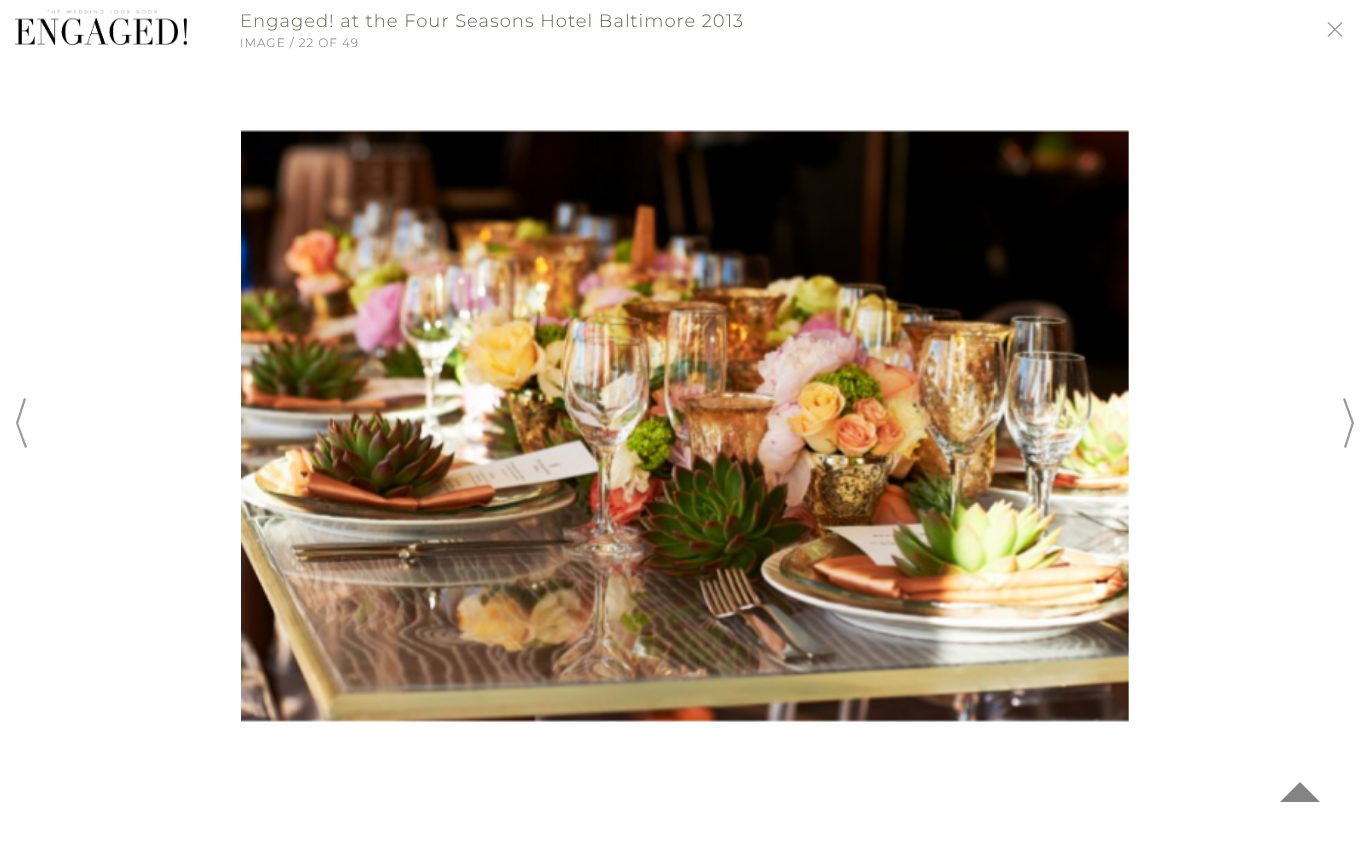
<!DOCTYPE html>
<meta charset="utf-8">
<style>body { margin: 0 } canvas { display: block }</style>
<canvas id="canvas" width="1370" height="852"></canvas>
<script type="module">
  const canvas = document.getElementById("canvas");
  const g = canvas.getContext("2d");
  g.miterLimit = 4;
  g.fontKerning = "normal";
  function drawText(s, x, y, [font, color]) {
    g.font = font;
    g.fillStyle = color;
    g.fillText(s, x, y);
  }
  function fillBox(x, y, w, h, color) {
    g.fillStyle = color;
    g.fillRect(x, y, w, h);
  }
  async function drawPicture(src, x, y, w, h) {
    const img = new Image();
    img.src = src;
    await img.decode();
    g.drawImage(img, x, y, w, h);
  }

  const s1 = ["300 18px Montserrat", "#666655"];
  const s2 = ["300 12px Montserrat", "#737373"];

  fillBox(0, 0, 1370, 852, "#FFFFFF");
  await drawPicture("pic1.png", 15, 10, 172, 35);
  g.letterSpacing = "1px";
  drawText("Engaged! at the Four Seasons Hotel Baltimore 2013", 240, 27, s1);
  drawText("IMAGE / 22 OF 49", 240, 47, s2);
  await drawPicture("pic2.png", 1327, 22, 16, 15);
  g.fillStyle = "#999999";
  g.beginPath();
  g.moveTo(16, 423);
  g.lineTo(24, 398);
  g.lineTo(26, 399);
  g.lineTo(18, 424);
  g.closePath();
  g.moveTo(16, 423);
  g.lineTo(18, 423);
  g.lineTo(27, 447);
  g.lineTo(25, 448);
  g.closePath();
  g.fill();
  await drawPicture("pic3.png", 241, 130, 888, 592);
  g.beginPath();
  g.moveTo(1344, 447);
  g.lineTo(1352, 422);
  g.lineTo(1354, 423);
  g.lineTo(1346, 448);
  g.closePath();
  g.moveTo(1343, 399);
  g.lineTo(1345, 398);
  g.lineTo(1354, 423);
  g.lineTo(1352, 424);
  g.closePath();
  g.fill();
  g.fillStyle = "#848484";
  g.beginPath();
  g.moveTo(1320, 802);
  g.lineTo(1280, 802);
  g.lineTo(1300, 782);
  g.closePath();
  g.fill();
</script>
